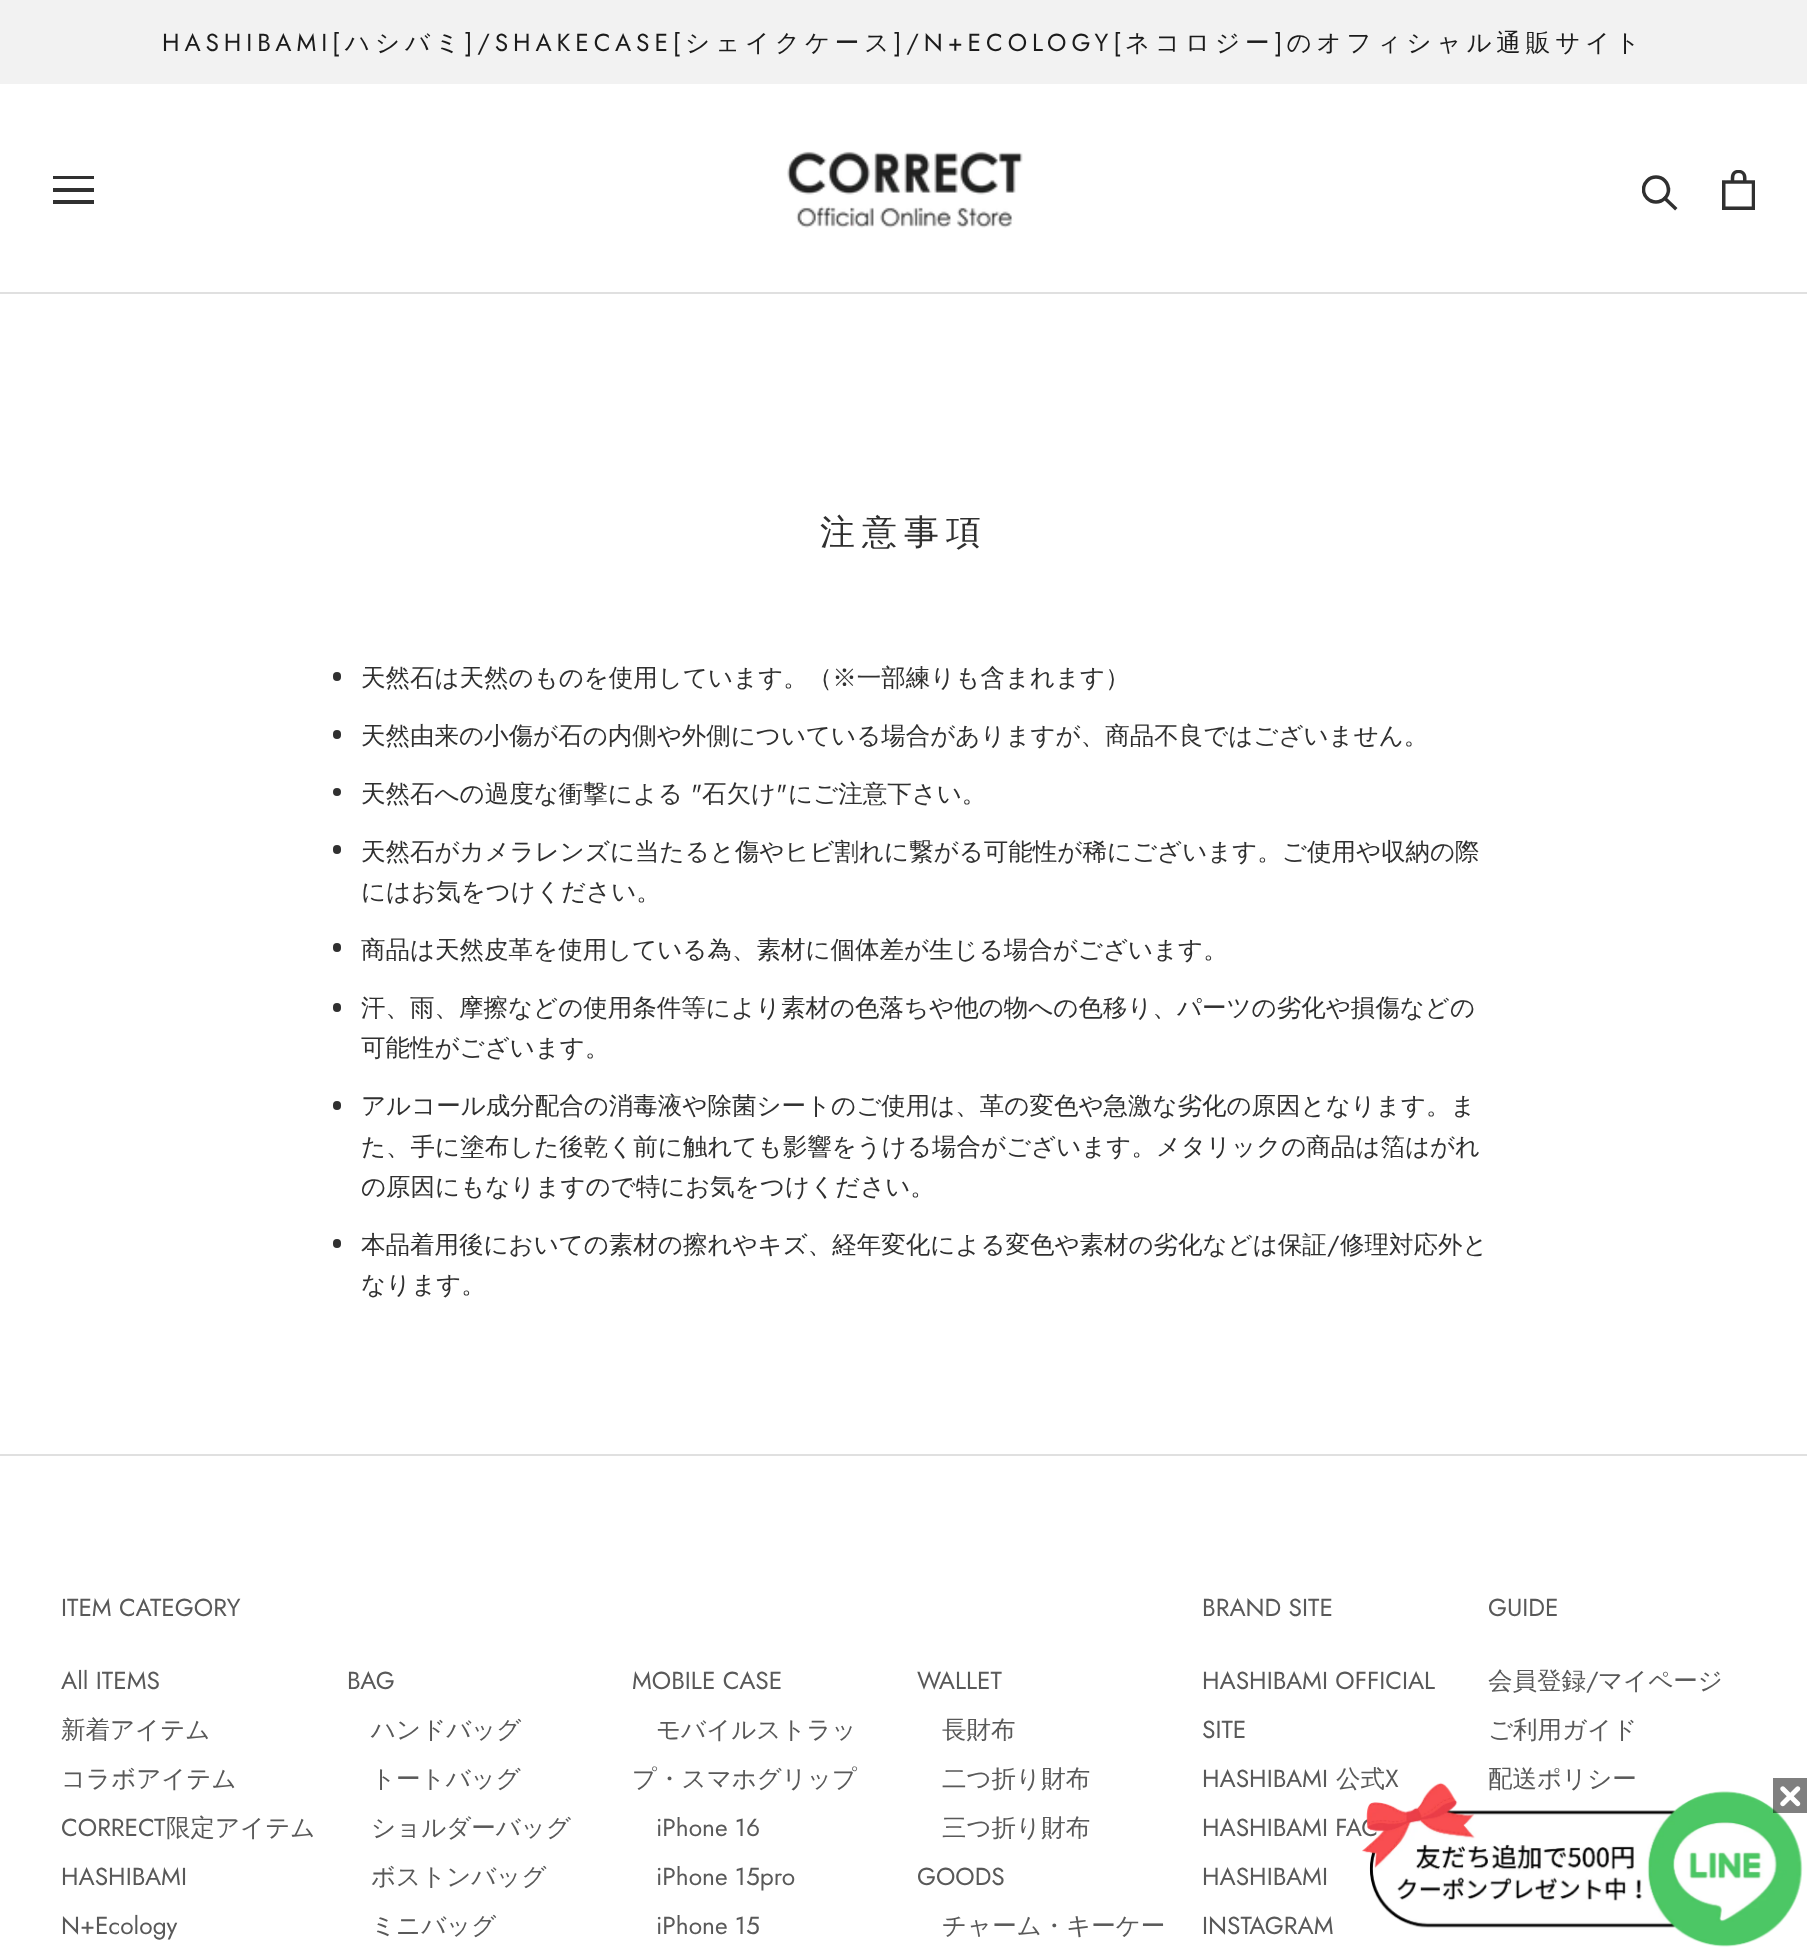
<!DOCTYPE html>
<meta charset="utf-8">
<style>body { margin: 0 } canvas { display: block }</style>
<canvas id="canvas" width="1807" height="1954"></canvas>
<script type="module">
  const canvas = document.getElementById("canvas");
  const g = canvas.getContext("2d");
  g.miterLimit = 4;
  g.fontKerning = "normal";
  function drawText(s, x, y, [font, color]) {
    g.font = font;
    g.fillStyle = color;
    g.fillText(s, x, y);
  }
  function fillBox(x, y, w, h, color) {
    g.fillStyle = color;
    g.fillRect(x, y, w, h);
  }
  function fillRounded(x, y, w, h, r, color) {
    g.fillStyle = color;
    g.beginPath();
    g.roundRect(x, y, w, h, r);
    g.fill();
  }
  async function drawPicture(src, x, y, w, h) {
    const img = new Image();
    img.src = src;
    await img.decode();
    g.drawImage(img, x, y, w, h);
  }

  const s1 = ["24.5px Jost", "#1B1B1B"];
  const s2 = ["500 24.5px WenQuanYi Zen Hei", "#1B1B1B"];
  const s3 = ["500 35px WenQuanYi Zen Hei", "#303030"];
  const s4 = ["500 24.5px WenQuanYi Zen Hei", "#303030"];
  const s5 = ["24.5px Jost", "#303030"];
  const s6 = ["24.5px Jost", "#595959"];
  const s7 = ["500 24.5px WenQuanYi Zen Hei", "#595959"];

  fillBox(0, 0, 1807, 1954, "#FFFFFF");
  fillBox(0, 0, 1807, 84, "#F2F2F2");
  g.letterSpacing = "4.9px";
  drawText("HASHIBAMI[", 162, 51, s1);
  drawText("]/SHAKECASE[", 465, 51, s1);
  drawText("]/N+ECOLOGY[", 894, 51, s1);
  drawText("ネコロジー のオフィシャル通販サイト", 1125, 51, s2);
  drawText("ハシバミ", 345, 51, s2);
  drawText("シェイクケース", 685, 51, s2);
  drawText("]", 1275, 51, s1);
  fillBox(0, 292, 1807, 2, "#E0E0E0");
  g.save();
  g.beginPath();
  g.rect(53, 175, 42, 30);
  g.clip();
  g.fillStyle = "#303030";
  g.beginPath();
  g.moveTo(52, 204);
  g.lineTo(52, 200);
  g.lineTo(94, 200);
  g.lineTo(94, 204);
  g.closePath();
  g.moveTo(52, 188);
  g.lineTo(94, 188);
  g.lineTo(94, 192);
  g.lineTo(52, 192);
  g.closePath();
  g.moveTo(52, 176);
  g.lineTo(94, 176);
  g.lineTo(94, 179);
  g.lineTo(52, 179);
  g.closePath();
  g.fill();
  g.restore();
  await drawPicture("pic1.png", 787, 151, 236, 77);
  g.beginPath();
  g.moveTo(1675, 208);
  g.lineTo(1665, 198.5);
  g.strokeStyle = "#303030";
  g.lineWidth = 3.5;
  g.lineCap = "square";
  g.stroke();
  g.save();
  g.beginPath();
  g.rect(1642, 175, 36, 37);
  g.clip();
  g.beginPath();
  g.arc(1656, 189.5, 12.5, 0, Math.PI * 2);
  g.stroke();
  g.restore();
  await drawPicture("pic2.png", 1722, 170, 33, 40);
  g.letterSpacing = "7px";
  drawText("注意事項", 820, 544, s3);
  fillRounded(333, 672, 8, 9, 4, "#303030");
  g.letterSpacing = "0px";
  drawText("天然石は天然のものを使用しています。（※一部練りも含まれます）", 361, 686, s4);
  fillRounded(333, 730, 8, 9, 4, "#303030");
  drawText("天然由来の小傷が石の内側や外側についている場合がありますが、商品不良ではございません。", 361, 744, s4);
  g.beginPath();
  g.arc(337, 792, 4, 0, Math.PI * 2);
  g.fill();
  drawText("天然石への過度な衝撃による", 361, 802, s4);
  drawText("\"", 691, 802, s5);
  drawText("石欠け", 702, 802, s4);
  drawText("\"", 776, 802, s5);
  drawText("にご注意下さい。", 788, 802, s4);
  fillRounded(333, 845, 8, 9, 4, "#303030");
  drawText("天然石がカメラレンズに当たると傷やヒビ割れに繋がる可能性が稀にございます。ご使用や収納の際", 361, 860, s4);
  drawText("にはお気をつけください。", 361, 900, s4);
  fillRounded(333, 943, 8, 9, 4, "#303030");
  drawText("商品は天然皮革を使用している為、素材に個体差が生じる場合がございます。", 361, 958, s4);
  fillRounded(333, 1003, 8, 9, 4, "#303030");
  drawText("汗、雨、摩擦などの使用条件等により素材の色落ちや他の物への色移り、パーツの劣化や損傷などの", 361, 1016, s4);
  drawText("可能性がございます。", 361, 1056, s4);
  fillRounded(333, 1101, 8, 9, 4, "#303030");
  drawText("アルコール成分配合の消毒液や除菌シートのご使用は、革の変色や急激な劣化の原因となります。ま", 361, 1114, s4);
  drawText("た、手に塗布した後乾く前に触れても影響をうける場合がございます。メタリックの商品は箔はがれ", 361, 1155, s4);
  drawText("の原因にもなりますので特にお気をつけください。", 361, 1195, s4);
  fillRounded(333, 1239, 8, 9, 4, "#303030");
  drawText("本品着用後においての素材の擦れやキズ、経年変化による変色や素材の劣化などは保証", 361, 1253, s4);
  drawText("/", 1327, 1253, s5);
  drawText("修理対応外と", 1340, 1253, s4);
  drawText("なります。", 361, 1293, s4);
  fillBox(0, 1454, 1807, 2, "#E0E0E0");
  drawText("ITEM CATEGORY", 61, 1616, s6);
  drawText("All ITEMS", 61, 1689, s6);
  drawText("新着アイテム", 61, 1738, s7);
  drawText("コラボアイテム", 61, 1787, s7);
  drawText("CORRECT", 61, 1836, s6);
  drawText("限定アイテム", 166, 1836, s7);
  drawText("HASHIBAMI", 61, 1885, s6);
  drawText("N+Ecology", 61, 1934, s6);
  drawText("BAG", 347, 1689, s6);
  drawText("ハンドバッグ", 371, 1738, s7);
  drawText("トートバッグ", 371, 1787, s7);
  drawText("ショルダーバッグ", 371, 1836, s7);
  drawText("ボストンバッグ", 371, 1885, s7);
  drawText("ミニバッグ", 371, 1934, s7);
  drawText("MOBILE CASE", 632, 1689, s6);
  drawText("モバイルストラッ", 656, 1738, s7);
  drawText("プ・スマホグリップ", 632, 1787, s7);
  drawText("iPhone 16", 656, 1836, s6);
  drawText("iPhone 15pro", 656, 1885, s6);
  drawText("iPhone 15", 656, 1934, s6);
  drawText("WALLET", 917, 1689, s6);
  drawText("長財布", 942, 1738, s7);
  drawText("二つ折り財布", 942, 1787, s7);
  drawText("三つ折り財布", 942, 1836, s7);
  drawText("GOODS", 917, 1885, s6);
  drawText("チャーム・キーケー", 942, 1934, s7);
  drawText("BRAND SITE", 1202, 1616, s6);
  drawText("HASHIBAMI OFFICIAL", 1202, 1689, s6);
  drawText("SITE", 1202, 1738, s6);
  drawText("HASHIBAMI", 1202, 1787, s6);
  drawText("公式", 1336, 1787, s7);
  drawText("X", 1385, 1787, s6);
  drawText("HASHIBAMI FAC", 1202, 1836, s6);
  drawText("HASHIBAMI", 1202, 1885, s6);
  drawText("INSTAGRAM", 1202, 1934, s6);
  drawText("GUIDE", 1488, 1616, s6);
  drawText("会員登録", 1488, 1689, s7);
  drawText("/", 1586, 1689, s6);
  drawText("マイページ", 1598, 1689, s7);
  drawText("ご利用ガイド", 1488, 1738, s7);
  drawText("配送ポリシー", 1488, 1787, s7);
  await drawPicture("pic3.png", 1362, 1782, 441, 165);
  fillBox(1773, 1778, 34, 35, "rgba(0, 0, 0, 0.5)");
  g.fillStyle = "#FFFFFF";
  g.beginPath();
  g.moveTo(1799.5, 1787);
  g.bezierCurveTo(1800.5, 1788, 1800.5, 1789.5, 1799.5, 1790.5);
  g.lineTo(1784.5, 1805.5);
  g.bezierCurveTo(1783.5, 1806.5, 1782, 1806.5, 1781, 1805.5);
  g.bezierCurveTo(1780, 1804.5, 1780, 1803, 1781, 1802);
  g.lineTo(1796, 1787);
  g.bezierCurveTo(1797, 1786, 1798.5, 1786, 1799.5, 1787);
  g.closePath();
  g.fill();
  g.beginPath();
  g.moveTo(1781, 1787);
  g.bezierCurveTo(1782, 1786, 1783.5, 1786, 1784.5, 1787);
  g.lineTo(1799.5, 1802);
  g.bezierCurveTo(1800.5, 1803, 1800.5, 1804.5, 1799.5, 1805.5);
  g.bezierCurveTo(1798.5, 1806.5, 1797, 1806.5, 1796, 1805.5);
  g.lineTo(1781, 1790.5);
  g.bezierCurveTo(1780, 1789.5, 1780, 1788, 1781, 1787);
  g.closePath();
  g.fill();
</script>
